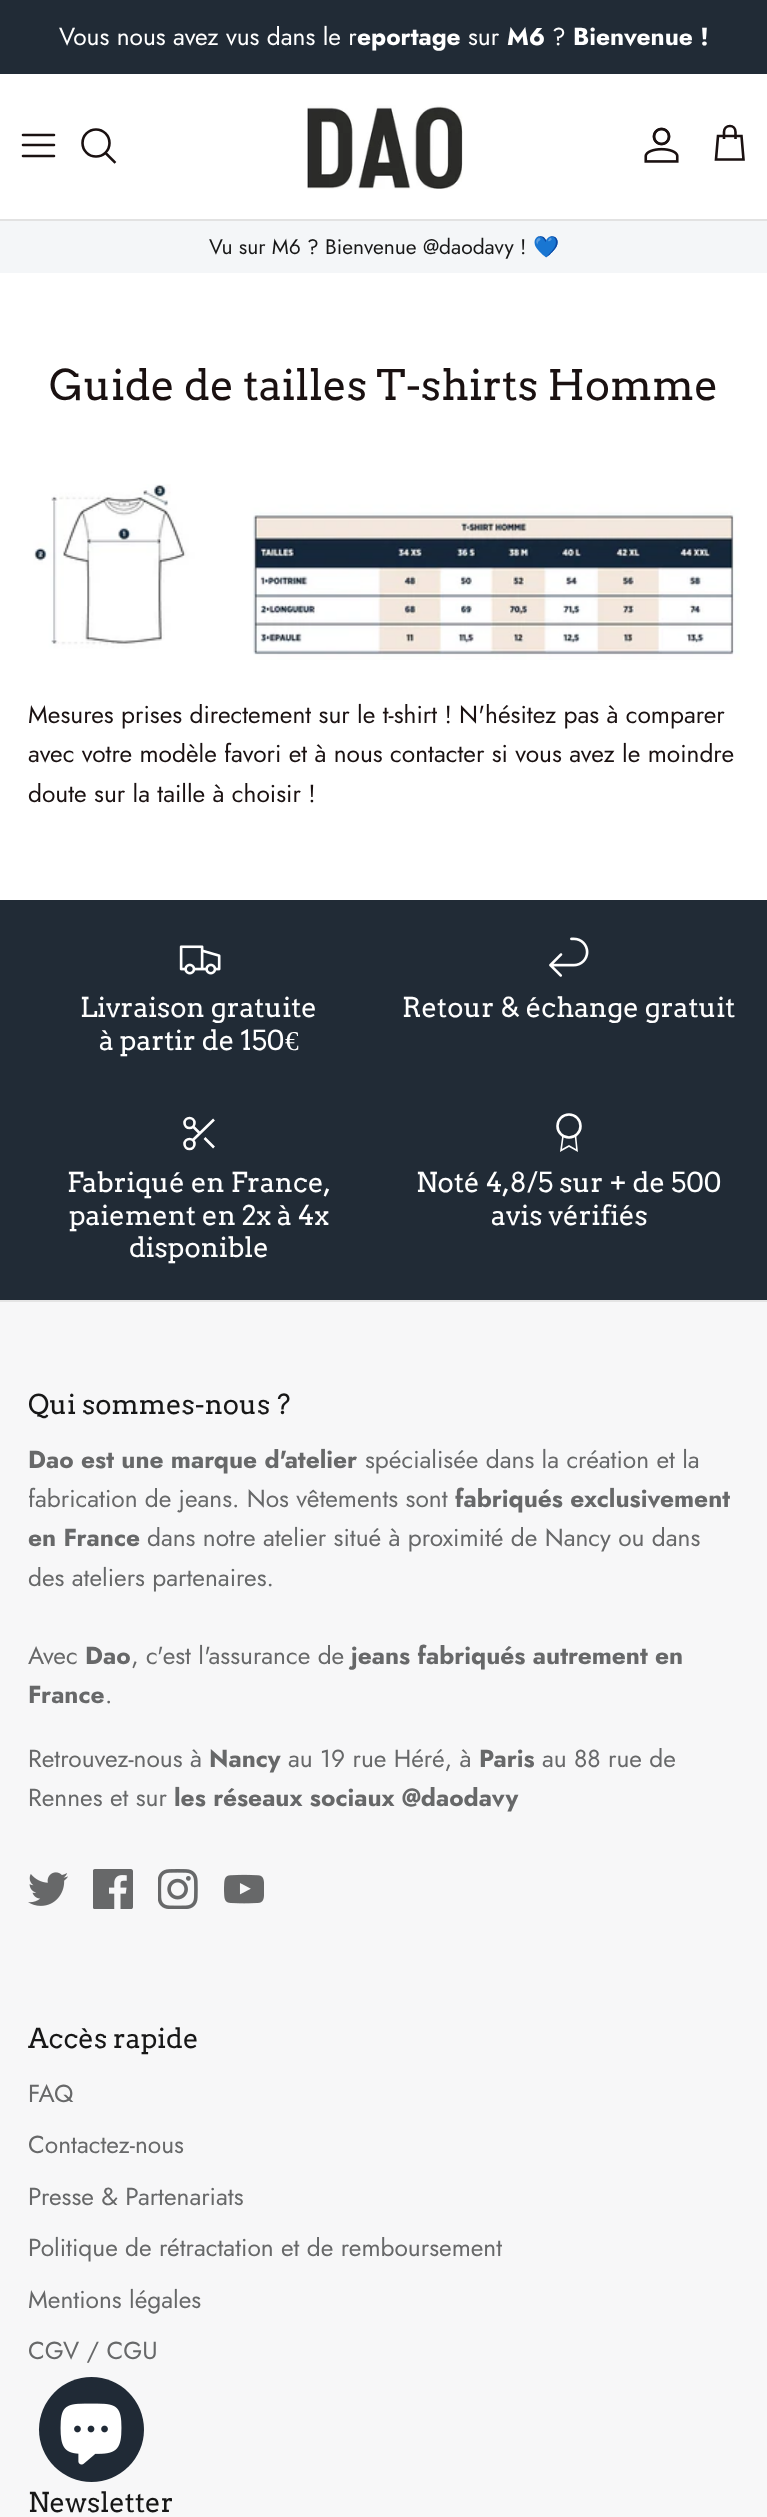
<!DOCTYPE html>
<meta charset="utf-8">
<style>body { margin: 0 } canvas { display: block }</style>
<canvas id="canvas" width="767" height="2517"></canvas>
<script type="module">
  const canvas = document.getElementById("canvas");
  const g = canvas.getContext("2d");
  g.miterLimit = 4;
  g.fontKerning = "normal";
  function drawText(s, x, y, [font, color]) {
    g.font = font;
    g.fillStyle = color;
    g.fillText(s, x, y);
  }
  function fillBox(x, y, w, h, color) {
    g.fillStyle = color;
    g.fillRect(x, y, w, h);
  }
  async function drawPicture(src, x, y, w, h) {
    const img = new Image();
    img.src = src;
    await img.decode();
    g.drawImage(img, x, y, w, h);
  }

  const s1 = ["24.5px Jost", "#FFFFFF"];
  const s2 = ["bold 24.5px Jost", "#FFFFFF"];
  const s3 = ["21px Jost", "#171717"];
  const s4 = ["21px Noto Color Emoji", "#171717"];
  const s5 = ["42px Arvo", "#1A1111"];
  const s6 = ["24.5px Jost", "#1A1111"];
  const s7 = ["27.25px Arvo", "#FFFFFF"];
  const s8 = ["27.25px Liberation Serif", "#FFFFFF"];
  const s9 = ["27.25px Arvo", "#171717"];
  const s10 = ["bold 24.5px Jost", "#676869"];
  const s11 = ["24.5px Jost", "#676869"];

  fillBox(0, 0, 767, 2517, "#FFFFFF");
  fillBox(0, 0, 767, 74, "#212B36");
  drawText("Vous nous avez vus dans le r", 59, 45, s1);
  drawText("eportage", 357, 45, s2);
  drawText("sur", 468, 45, s1);
  drawText("M6", 507, 45, s2);
  drawText("?", 552, 45, s1);
  drawText("Bienvenue !", 573, 45, s2);
  fillBox(0, 219, 767, 2, "#E2E2E2");
  g.beginPath();
  g.moveTo(23, 145);
  g.lineTo(54, 145);
  g.moveTo(23, 135);
  g.lineTo(54, 135);
  g.moveTo(23, 156);
  g.lineTo(54, 156);
  g.strokeStyle = "#1A1111";
  g.lineWidth = 2.6;
  g.lineCap = "round";
  g.lineJoin = "round";
  g.stroke();
  g.beginPath();
  g.arc(96, 143, 13.5, 0, Math.PI * 2);
  g.stroke();
  g.beginPath();
  g.moveTo(106.5, 154);
  g.lineTo(114.5, 162);
  g.lineCap = "square";
  g.lineJoin = "miter";
  g.stroke();
  await drawPicture("pic1.png", 307, 105, 156, 84);
  await drawPicture("pic2.png", 644, 127, 35, 36);
  g.beginPath();
  g.moveTo(735.5, 139);
  g.lineTo(735.5, 132);
  g.bezierCurveTo(735.5, 128.5, 733, 126, 730, 126);
  g.bezierCurveTo(726.5, 126, 724, 128.5, 724, 132);
  g.lineTo(724, 139);
  g.moveTo(718, 136);
  g.lineTo(741.5, 136);
  g.lineTo(743.5, 159.5);
  g.lineTo(716, 159.5);
  g.closePath();
  g.lineCap = "butt";
  g.stroke();
  fillBox(0, 221, 767, 52, "#F4F6F8");
  drawText("Vu sur M6 ? Bienvenue @daodavy !", 209, 254, s3);
  drawText("💙", 533, 254, s4);
  drawText("Guide de tailles T-shirts Homme", 49, 400, s5);
  await drawPicture("pic3.png", 33, 484, 707, 176);
  drawText("Mesures prises directement sur le t-shirt ! N'hésitez pas à comparer", 28, 723, s6);
  drawText("avec votre modèle favori et à nous contacter si vous avez le moindre", 28, 762, s6);
  drawText("doute sur la taille à choisir !", 28, 802, s6);
  fillBox(0, 1302, 767, 1215, "#F7F7F8");
  fillBox(0, 900, 767, 400, "#212B36");
  await drawPicture("pic4.png", 179, 945, 42, 30);
  drawText("Livraison gratuite", 80, 1017, s7);
  drawText("à partir de 150", 99, 1050, s7);
  drawText("€", 285, 1050, s8);
  await drawPicture("pic5.png", 549, 937, 40, 40);
  drawText("Retour & échange gratuit", 402, 1017, s7);
  g.beginPath();
  g.arc(189.5, 1123, 5, 0, Math.PI * 2);
  g.strokeStyle = "#FFFFFF";
  g.stroke();
  g.beginPath();
  g.arc(189.5, 1144, 5, 0, Math.PI * 2);
  g.stroke();
  g.beginPath();
  g.moveTo(214, 1119.5);
  g.lineTo(193, 1140);
  g.moveTo(204.5, 1138);
  g.lineTo(214, 1147.5);
  g.moveTo(193, 1126.5);
  g.lineTo(200, 1133.5);
  g.stroke();
  drawText("Fabriqué en France,", 67, 1192, s7);
  drawText("paiement en 2x à 4x", 69, 1225, s7);
  drawText("disponible", 129, 1257, s7);
  g.beginPath();
  g.arc(569, 1126, 11.5, 0, Math.PI * 2);
  g.stroke();
  g.beginPath();
  g.moveTo(563, 1136);
  g.lineTo(561, 1150.5);
  g.lineTo(569, 1146);
  g.lineTo(577, 1150.5);
  g.lineTo(575.5, 1136);
  g.lineWidth = 1.6;
  g.stroke();
  drawText("Noté 4,8/5 sur + de 500", 416, 1192, s7);
  drawText("avis vérifiés", 491, 1225, s7);
  fillBox(0, 1300, 767, 2, "#E4E4E4");
  drawText("Qui sommes-nous ?", 28, 1414, s9);
  drawText("Dao est une marque d'atelier", 28, 1468, s10);
  drawText("spécialisée dans la création et la", 365, 1468, s11);
  drawText("fabrication de jeans. Nos vêtements sont", 28, 1507, s11);
  drawText("fabriqués exclusivement", 455, 1507, s10);
  drawText("en France", 28, 1546, s10);
  drawText("dans notre atelier situé à proximité de Nancy ou dans", 147, 1546, s11);
  drawText("des ateliers partenaires.", 28, 1586, s11);
  drawText("Avec", 28, 1664, s11);
  drawText("Dao", 85, 1664, s10);
  drawText(", c'est l'assurance de", 131, 1664, s11);
  drawText("jeans fabriqués autrement en", 351, 1664, s10);
  drawText("France", 28, 1703, s10);
  drawText(".", 105, 1703, s11);
  drawText("Retrouvez-nous à", 28, 1767, s11);
  drawText("Nancy", 209, 1767, s10);
  drawText("au 19 rue Héré, à", 288, 1767, s11);
  drawText("Paris", 479, 1767, s10);
  drawText("au 88 rue de", 542, 1767, s11);
  drawText("Rennes et sur", 28, 1806, s11);
  drawText("les réseaux sociaux @daodavy", 174, 1806, s10);
  await drawPicture("pic6.png", 28, 1872, 40, 34);
  await drawPicture("pic7.png", 93, 1869, 40, 40);
  await drawPicture("pic8.png", 158, 1869, 40, 40);
  await drawPicture("pic9.png", 224, 1874, 40, 30);
  drawText("Accès rapide", 28, 2048, s9);
  drawText("FAQ", 28, 2102, s11);
  drawText("Contactez-nous", 28, 2153, s11);
  drawText("Presse & Partenariats", 28, 2205, s11);
  drawText("Politique de rétractation et de remboursement", 28, 2256, s11);
  drawText("Mentions légales", 28, 2308, s11);
  drawText("CGV / CGU", 28, 2359, s11);
  drawText("Newsletter", 28, 2512, s9);
  g.fillStyle = "#202A36";
  g.beginPath();
  g.arc(91.5, 2429.5, 52.5, 0, Math.PI * 2);
  g.fill();
  await drawPicture("pic10.png", 60, 2403, 62, 62);
</script>
